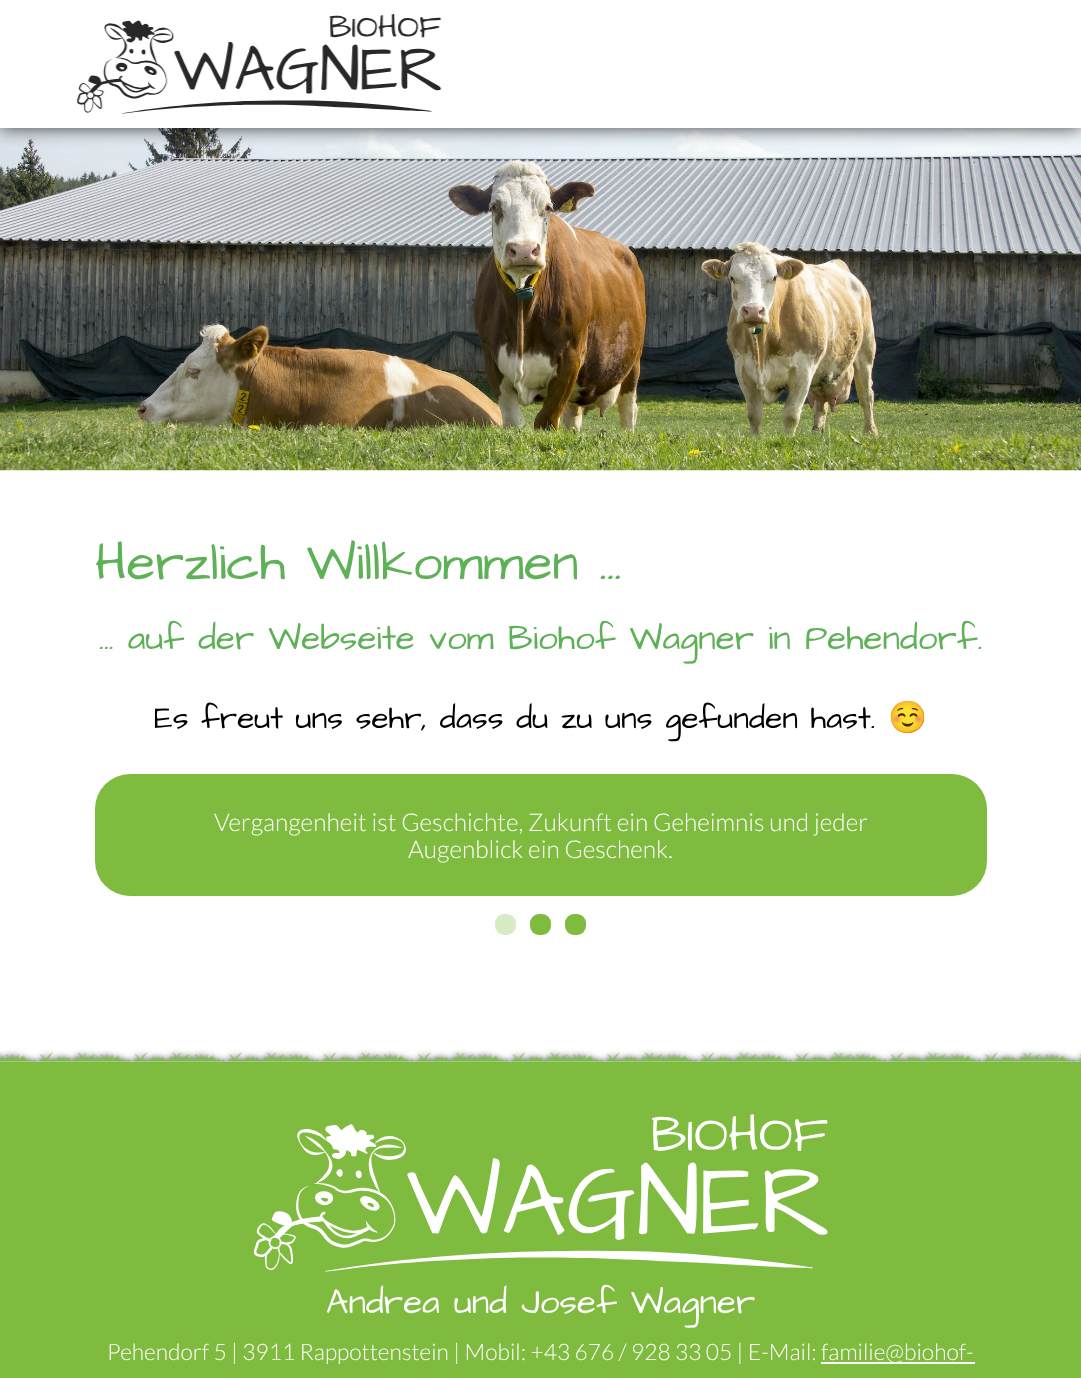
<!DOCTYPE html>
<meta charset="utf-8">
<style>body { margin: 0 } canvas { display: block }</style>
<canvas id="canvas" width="1081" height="1378"></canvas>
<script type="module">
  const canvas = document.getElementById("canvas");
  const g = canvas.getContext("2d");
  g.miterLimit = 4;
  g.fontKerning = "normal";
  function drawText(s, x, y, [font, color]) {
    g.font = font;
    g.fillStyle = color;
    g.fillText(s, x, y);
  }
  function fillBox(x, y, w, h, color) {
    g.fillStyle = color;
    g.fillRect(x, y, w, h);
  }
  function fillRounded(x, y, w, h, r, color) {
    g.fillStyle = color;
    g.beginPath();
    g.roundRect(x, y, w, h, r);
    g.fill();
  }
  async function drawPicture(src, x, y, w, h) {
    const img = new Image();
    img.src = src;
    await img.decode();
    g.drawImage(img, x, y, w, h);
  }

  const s1 = ["52.5px Architects Daughter", "#5FB157"];
  const s2 = ["35px Architects Daughter", "#5FB157"];
  const s3 = ["31.5px Architects Daughter", "#000000"];
  const s4 = ["31.5px Noto Color Emoji", "#000000"];
  const s5 = ["300 24.5px Lato", "#FFFFFF"];
  const s6 = ["35px Architects Daughter", "#FFFFFF"];
  const s7 = ["300 22.75px Lato", "#FFFFFF"];

  fillBox(0, 0, 1081, 1378, "#FFFFFF");
  await drawPicture("pic2.png", 0, 128, 1081, 343);
  g.fillStyle = "rgba(0, 0, 0, 0.75)";
  g.filter = "blur(9px)";
  g.beginPath();
  g.rect(0, 0, 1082, 128);
  g.fill();
  g.filter = "none";
  fillBox(0, 0, 1081, 128, "#FFFFFF");
  await drawPicture("pic1.png", 77, 14, 365, 100);
  drawText("Herzlich Willkommen ...", 95, 579, s1);
  drawText("... auf der Webseite vom Biohof Wagner in Pehendorf.", 99, 649, s2);
  drawText("Es freut uns sehr, dass du zu uns gefunden hast.", 154, 728, s3);
  drawText("☺️", 888, 728, s4);
  fillRounded(95, 774, 892, 122, 35, "#7FBB3E");
  drawText("Vergangenheit ist Geschichte, Zukunft ein Geheimnis und jeder", 214, 831, s5);
  drawText("Augenblick ein Geschenk.", 408, 858, s5);
  fillRounded(495, 914, 21, 21, 9, "#D9EBC5");
  fillRounded(530, 914, 21, 21, 9, "#7FBB3E");
  fillRounded(565, 914, 21, 21, 9, "#7FBB3E");
  fillBox(0, 1062, 1081, 316, "#7FBB3E");
  await drawPicture("pic3.png", 0, 1049, 1081, 13);
  await drawPicture("pic4.png", 254, 1114, 574, 158);
  drawText("Andrea und Josef Wagner", 326, 1313, s6);
  drawText("Pehendorf 5 | 3911 Rappottenstein | Mobil: +43 676 / 928 33 05 | E-Mail:", 107, 1360, s7);
  fillBox(821, 1362, 154, 2, "#FFFFFF");
  drawText("familie@biohof-", 821, 1360, s7);
</script>
